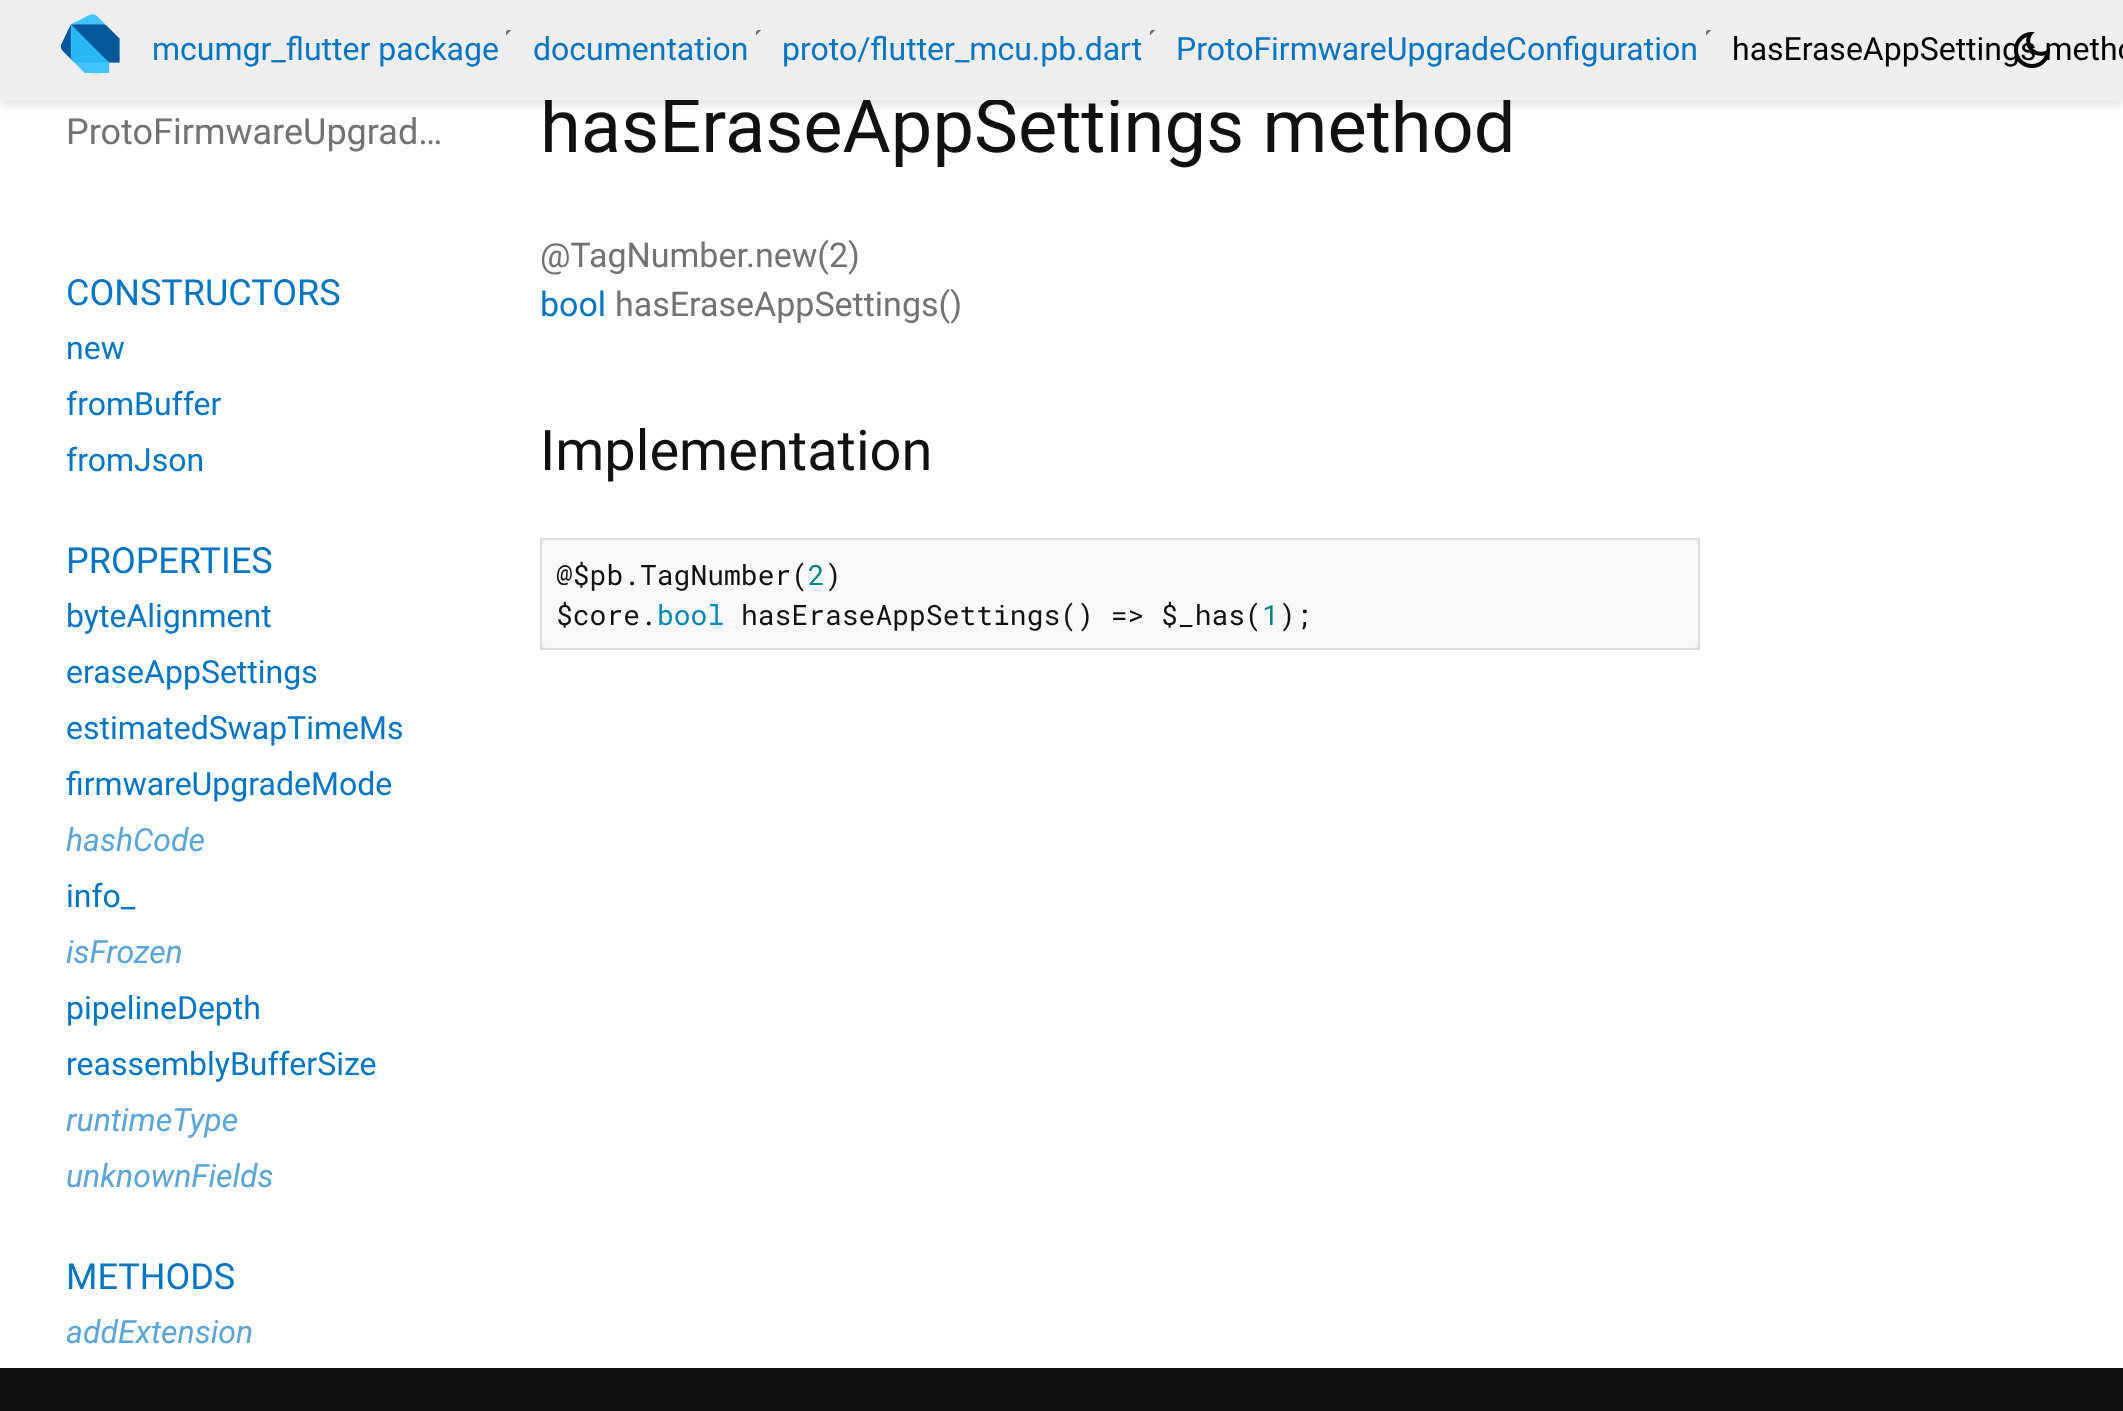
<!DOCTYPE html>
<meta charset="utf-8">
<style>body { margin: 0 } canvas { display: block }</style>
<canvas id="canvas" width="2123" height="1411"></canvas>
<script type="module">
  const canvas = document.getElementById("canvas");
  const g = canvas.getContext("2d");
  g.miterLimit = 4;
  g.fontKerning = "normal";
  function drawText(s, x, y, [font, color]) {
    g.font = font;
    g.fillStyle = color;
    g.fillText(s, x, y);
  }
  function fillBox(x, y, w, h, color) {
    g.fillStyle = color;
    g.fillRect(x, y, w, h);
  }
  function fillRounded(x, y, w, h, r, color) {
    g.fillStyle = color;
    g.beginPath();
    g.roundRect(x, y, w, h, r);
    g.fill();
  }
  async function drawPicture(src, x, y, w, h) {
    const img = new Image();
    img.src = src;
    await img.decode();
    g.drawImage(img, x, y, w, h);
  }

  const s1 = ["74px Roboto", "#111111"];
  const s2 = ["32px Roboto", "#000000"];
  const s3 = ["32px Roboto", "#0175C2"];
  const s4 = ["36px Roboto", "#727272"];
  const s5 = ["36px Roboto", "#0175C2"];
  const s6 = ["italic 32px Roboto", "#5AA5D7"];
  const s7 = ["34px Roboto", "#727272"];
  const s8 = ["34px Roboto", "#0175C2"];
  const s9 = ["56px Roboto", "#111111"];
  const s10 = ["28px Roboto Mono", "#111111"];
  const s11 = ["28px Roboto Mono", "#008080"];
  const s12 = ["28px Roboto Mono", "#0086B3"];

  fillBox(0, 0, 2123, 1411, "#FFFFFF");
  g.fillStyle = "rgba(0, 0, 0, 0.1)";
  g.filter = "blur(5px)";
  g.beginPath();
  g.rect(0, 6, 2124, 100);
  g.fill();
  g.filter = "none";
  drawText("hasEraseAppSettings method", 540, 152, s1);
  fillBox(0, 0, 2123, 100, "#EEEEEE");
  await drawPicture("pic1.png", 60, 14, 60, 59);
  drawText("hasEraseAppSettings metho", 1732, 60, s2);
  await drawPicture("pic2.png", 2014, 32, 36, 36);
  drawText("mcumgr_flutter package", 152, 60, s3);
  await drawPicture("pic3.png", 506, 30, 6, 6);
  drawText("documentation", 533, 60, s3);
  await drawPicture("pic3.png", 756, 30, 6, 6);
  drawText("proto/flutter_mcu.pb.dart", 782, 60, s3);
  await drawPicture("pic3.png", 1150, 30, 6, 6);
  drawText("ProtoFirmwareUpgradeConfiguration", 1176, 60, s3);
  await drawPicture("pic3.png", 1706, 30, 6, 6);
  drawText("ProtoFirmwareUpgrad…", 66, 144, s4);
  drawText("CONSTRUCTORS", 66, 305, s5);
  drawText("new", 66, 359, s3);
  drawText("fromBuffer", 66, 415, s3);
  drawText("fromJson", 66, 471, s3);
  drawText("PROPERTIES", 66, 573, s5);
  drawText("byteAlignment", 66, 627, s3);
  drawText("eraseAppSettings", 66, 683, s3);
  drawText("estimatedSwapTimeMs", 66, 739, s3);
  drawText("firmwareUpgradeMode", 66, 795, s3);
  drawText("hashCode", 66, 851, s6);
  drawText("info_", 66, 907, s3);
  drawText("isFrozen", 66, 963, s6);
  drawText("pipelineDepth", 66, 1019, s3);
  drawText("reassemblyBufferSize", 66, 1075, s3);
  drawText("runtimeType", 66, 1131, s6);
  drawText("unknownFields", 66, 1187, s6);
  drawText("METHODS", 66, 1289, s5);
  drawText("addExtension", 66, 1343, s6);
  drawText("@TagNumber.new(2)", 540, 267, s7);
  drawText("bool", 540, 316, s8);
  drawText("hasEraseAppSettings()", 615, 316, s7);
  drawText("Implementation", 540, 470, s9);
  g.fillStyle = "#EEEEEE";
  g.beginPath();
  g.rect(541, 539, 1158, 110);
  g.fill();
  g.strokeStyle = "#DDDDDD";
  g.lineWidth = 2;
  g.stroke();
  fillRounded(542, 540, 1156, 108, 6, "#F8F8F8");
  drawText("@$pb.TagNumber( )", 556, 585, s10);
  drawText("2", 808, 585, s11);
  drawText("$core.", 556, 625, s10);
  drawText("bool", 657, 625, s12);
  drawText("hasEraseAppSettings() => $_has( );", 741, 625, s10);
  drawText("1", 1262, 625, s11);
  fillBox(0, 1368, 2123, 43, "#111111");
</script>
